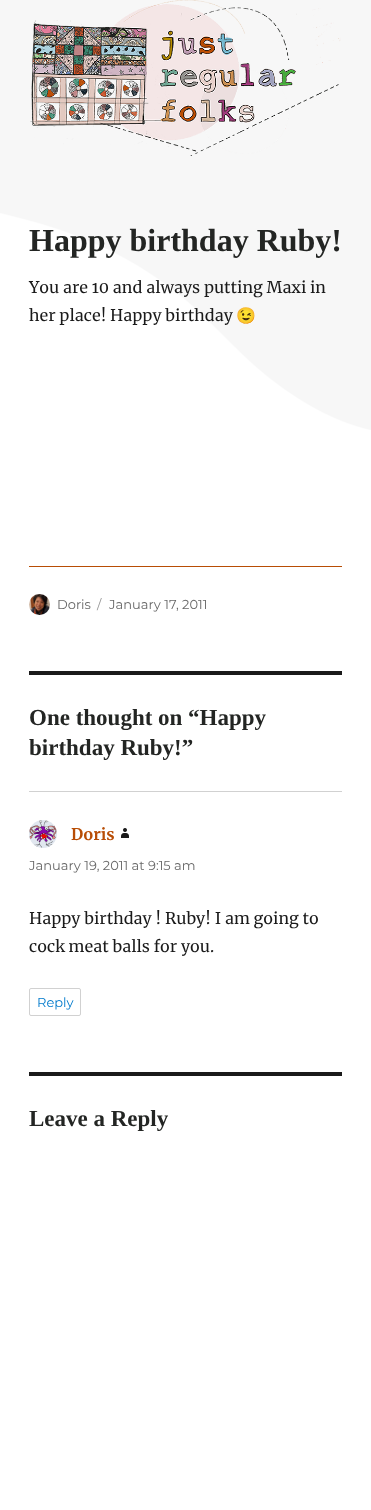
<!DOCTYPE html>
<meta charset="utf-8">
<style>body { margin: 0 } canvas { display: block }</style>
<canvas id="canvas" width="371" height="1510"></canvas>
<script type="module">
  const canvas = document.getElementById("canvas");
  const g = canvas.getContext("2d");
  g.miterLimit = 4;
  g.fontKerning = "normal";
  function drawText(s, x, y, [font, color]) {
    g.font = font;
    g.fillStyle = color;
    g.fillText(s, x, y);
  }
  function fillBox(x, y, w, h, color) {
    g.fillStyle = color;
    g.fillRect(x, y, w, h);
  }
  async function drawPicture(src, x, y, w, h) {
    const img = new Image();
    img.src = src;
    await img.decode();
    g.drawImage(img, x, y, w, h);
  }

  const s1 = ["bold 32px Liberation Serif", "#232523"];
  const s2 = ["16px Merriweather", "#1A1A1A"];
  const s3 = ["16px Noto Color Emoji", "#1A1A1A"];
  const s4 = ["100 13px Montserrat", "#686868"];
  const s5 = ["100 13px Montserrat", "#959595"];
  const s6 = ["bold 23px Liberation Serif", "#232523"];
  const s7 = ["bold 16px Merriweather", "#B84D05"];
  const s8 = ["100 13px Montserrat", "#007ACC"];

  fillBox(0, 0, 371, 1510, "#FFFFFF");
  await drawPicture("pic1.png", 0, 0, 371, 430);
  await drawPicture("pic2.png", 30, 0, 311, 156);
  drawText("Happy birthday Ruby!", 29, 251, s1);
  drawText("You are 10 and always putting Maxi in", 29, 293, s2);
  drawText("her place! Happy birthday", 29, 321, s2);
  drawText("😉", 236, 321, s3);
  fillBox(29, 566, 313, 1, "#B84D05");
  await drawPicture("pic3.png", 29, 594, 21, 21);
  drawText("Doris", 57, 609, s4);
  drawText("/", 97, 609, s5);
  drawText("January 17, 2011", 109, 609, s4);
  fillBox(29, 671, 313, 4, "#1A1A1A");
  drawText("One thought on “Happy", 29, 725, s6);
  drawText("birthday Ruby!”", 29, 755, s6);
  fillBox(29, 791, 313, 1, "#D1D1D1");
  await drawPicture("pic4.png", 29, 820, 28, 28);
  drawText("Doris", 71, 840, s7);
  await drawPicture("pic5.png", 121, 828, 8, 10);
  drawText("January 19, 2011 at 9:15 am", 29, 870, s4);
  drawText("Happy birthday ! Ruby! I am going to", 29, 924, s2);
  drawText("cock meat balls for you.", 29, 952, s2);
  g.beginPath();
  g.roundRect(29.5, 988.5, 51, 27, 1.5);
  g.strokeStyle = "#D1D1D1";
  g.stroke();
  drawText("Reply", 37, 1007, s8);
  fillBox(29, 1072, 313, 4, "#1A1A1A");
  drawText("Leave a Reply", 29, 1126, s6);
</script>
